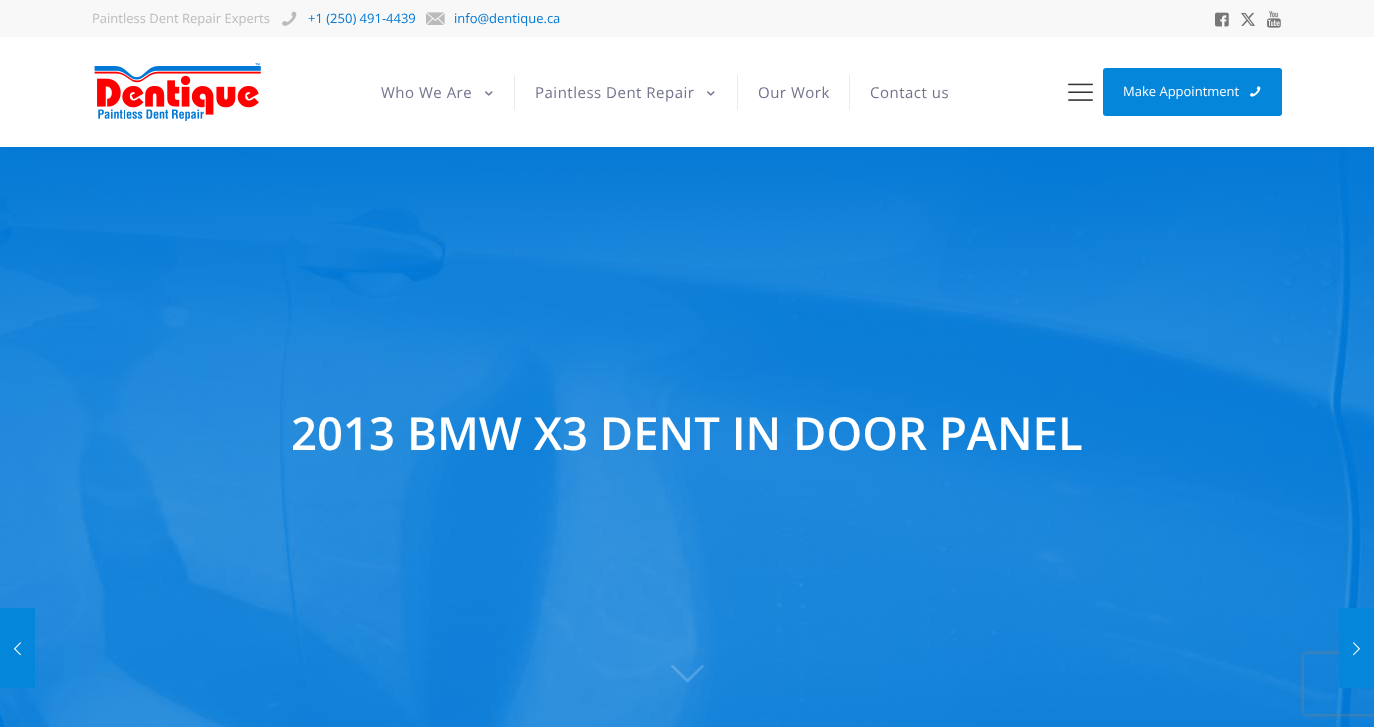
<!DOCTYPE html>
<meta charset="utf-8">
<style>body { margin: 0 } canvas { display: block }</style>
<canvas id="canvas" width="1374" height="728"></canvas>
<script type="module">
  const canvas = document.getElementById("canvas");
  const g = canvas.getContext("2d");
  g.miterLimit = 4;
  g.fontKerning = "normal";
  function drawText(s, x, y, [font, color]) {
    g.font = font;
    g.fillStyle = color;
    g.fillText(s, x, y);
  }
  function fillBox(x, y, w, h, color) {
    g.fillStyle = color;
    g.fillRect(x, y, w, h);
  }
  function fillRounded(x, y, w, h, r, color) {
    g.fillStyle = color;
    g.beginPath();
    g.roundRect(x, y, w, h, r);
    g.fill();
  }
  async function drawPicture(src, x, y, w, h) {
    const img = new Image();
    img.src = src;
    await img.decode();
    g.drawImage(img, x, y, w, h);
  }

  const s1 = ["13px Open Sans", "#BBBBBB"];
  const s2 = ["13px Open Sans", "#0178D6"];
  const s3 = ["15px Open Sans", "#73748C"];
  const s4 = ["13px Open Sans", "#FFFFFF"];
  const s5 = ["600 45.5px Open Sans", "#FFFFFF"];

  fillBox(0, 0, 1374, 728, "#FFFFFF");
  fillBox(0, 0, 1374, 37, "#F8F8F8");
  drawText("Paintless Dent Repair Experts", 92, 23, s1);
  await drawPicture("pic1.png", 282, 11, 15, 15);
  drawText("+1 (250) 491-4439", 308, 23, s2);
  await drawPicture("pic2.png", 426, 12, 19, 13);
  drawText("info@dentique.ca", 454, 23, s2);
  await drawPicture("pic3.png", 1215, 12, 14, 15);
  await drawPicture("pic4.png", 1241, 12, 14, 14);
  await drawPicture("pic5.png", 1267, 11, 14, 17);
  await drawPicture("pic6.png", 94, 63, 167, 58);
  g.letterSpacing = "0.5px";
  drawText("Who We Are", 381, 98, s3);
  await drawPicture("pic7.png", 485, 91, 8, 5);
  fillBox(514, 75, 1, 35, "#EBEBEB");
  drawText("Paintless Dent Repair", 535, 98, s3);
  await drawPicture("pic7.png", 707, 91, 8, 5);
  fillBox(737, 75, 1, 35, "#EBEBEB");
  drawText("Our Work", 758, 98, s3);
  fillBox(849, 75, 1, 35, "#EBEBEB");
  drawText("Contact us", 870, 98, s3);
  await drawPicture("pic8.png", 1068, 83, 25, 18);
  fillRounded(1103, 68, 179, 48, 3, "#0486DB");
  g.letterSpacing = "0px";
  drawText("Make Appointment", 1123, 96, s4);
  await drawPicture("pic9.png", 1250, 86, 11, 11);
  await drawPicture("pic10.png", 0, 147, 1374, 580);
  drawText("2013 BMW X3 DENT IN DOOR PANEL", 291, 450, s5);
  await drawPicture("pic11.png", 671, 665, 33, 18);
  fillBox(0, 608, 35, 80, "#0486DB");
  await drawPicture("pic12.png", 14, 642, 7, 14);
  g.save();
  g.beginPath();
  g.moveTo(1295, 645);
  g.lineTo(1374, 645);
  g.lineTo(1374, 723);
  g.lineTo(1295, 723);
  g.closePath();
  g.moveTo(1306, 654);
  g.lineTo(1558, 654);
  g.bezierCurveTo(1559, 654, 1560, 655, 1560, 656);
  g.lineTo(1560, 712);
  g.bezierCurveTo(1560, 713, 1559, 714, 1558, 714);
  g.lineTo(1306, 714);
  g.bezierCurveTo(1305, 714, 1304, 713, 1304, 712);
  g.lineTo(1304, 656);
  g.bezierCurveTo(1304, 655, 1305, 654, 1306, 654);
  g.closePath();
  g.clip("evenodd");
  g.fillStyle = "#808080";
  g.filter = "blur(2.5px)";
  g.beginPath();
  g.roundRect(1304, 654, 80, 60, 2);
  g.fill();
  g.filter = "none";
  g.restore();
  fillBox(1339, 608, 35, 80, "#0486DB");
  await drawPicture("pic13.png", 1353, 642, 7, 14);
</script>
